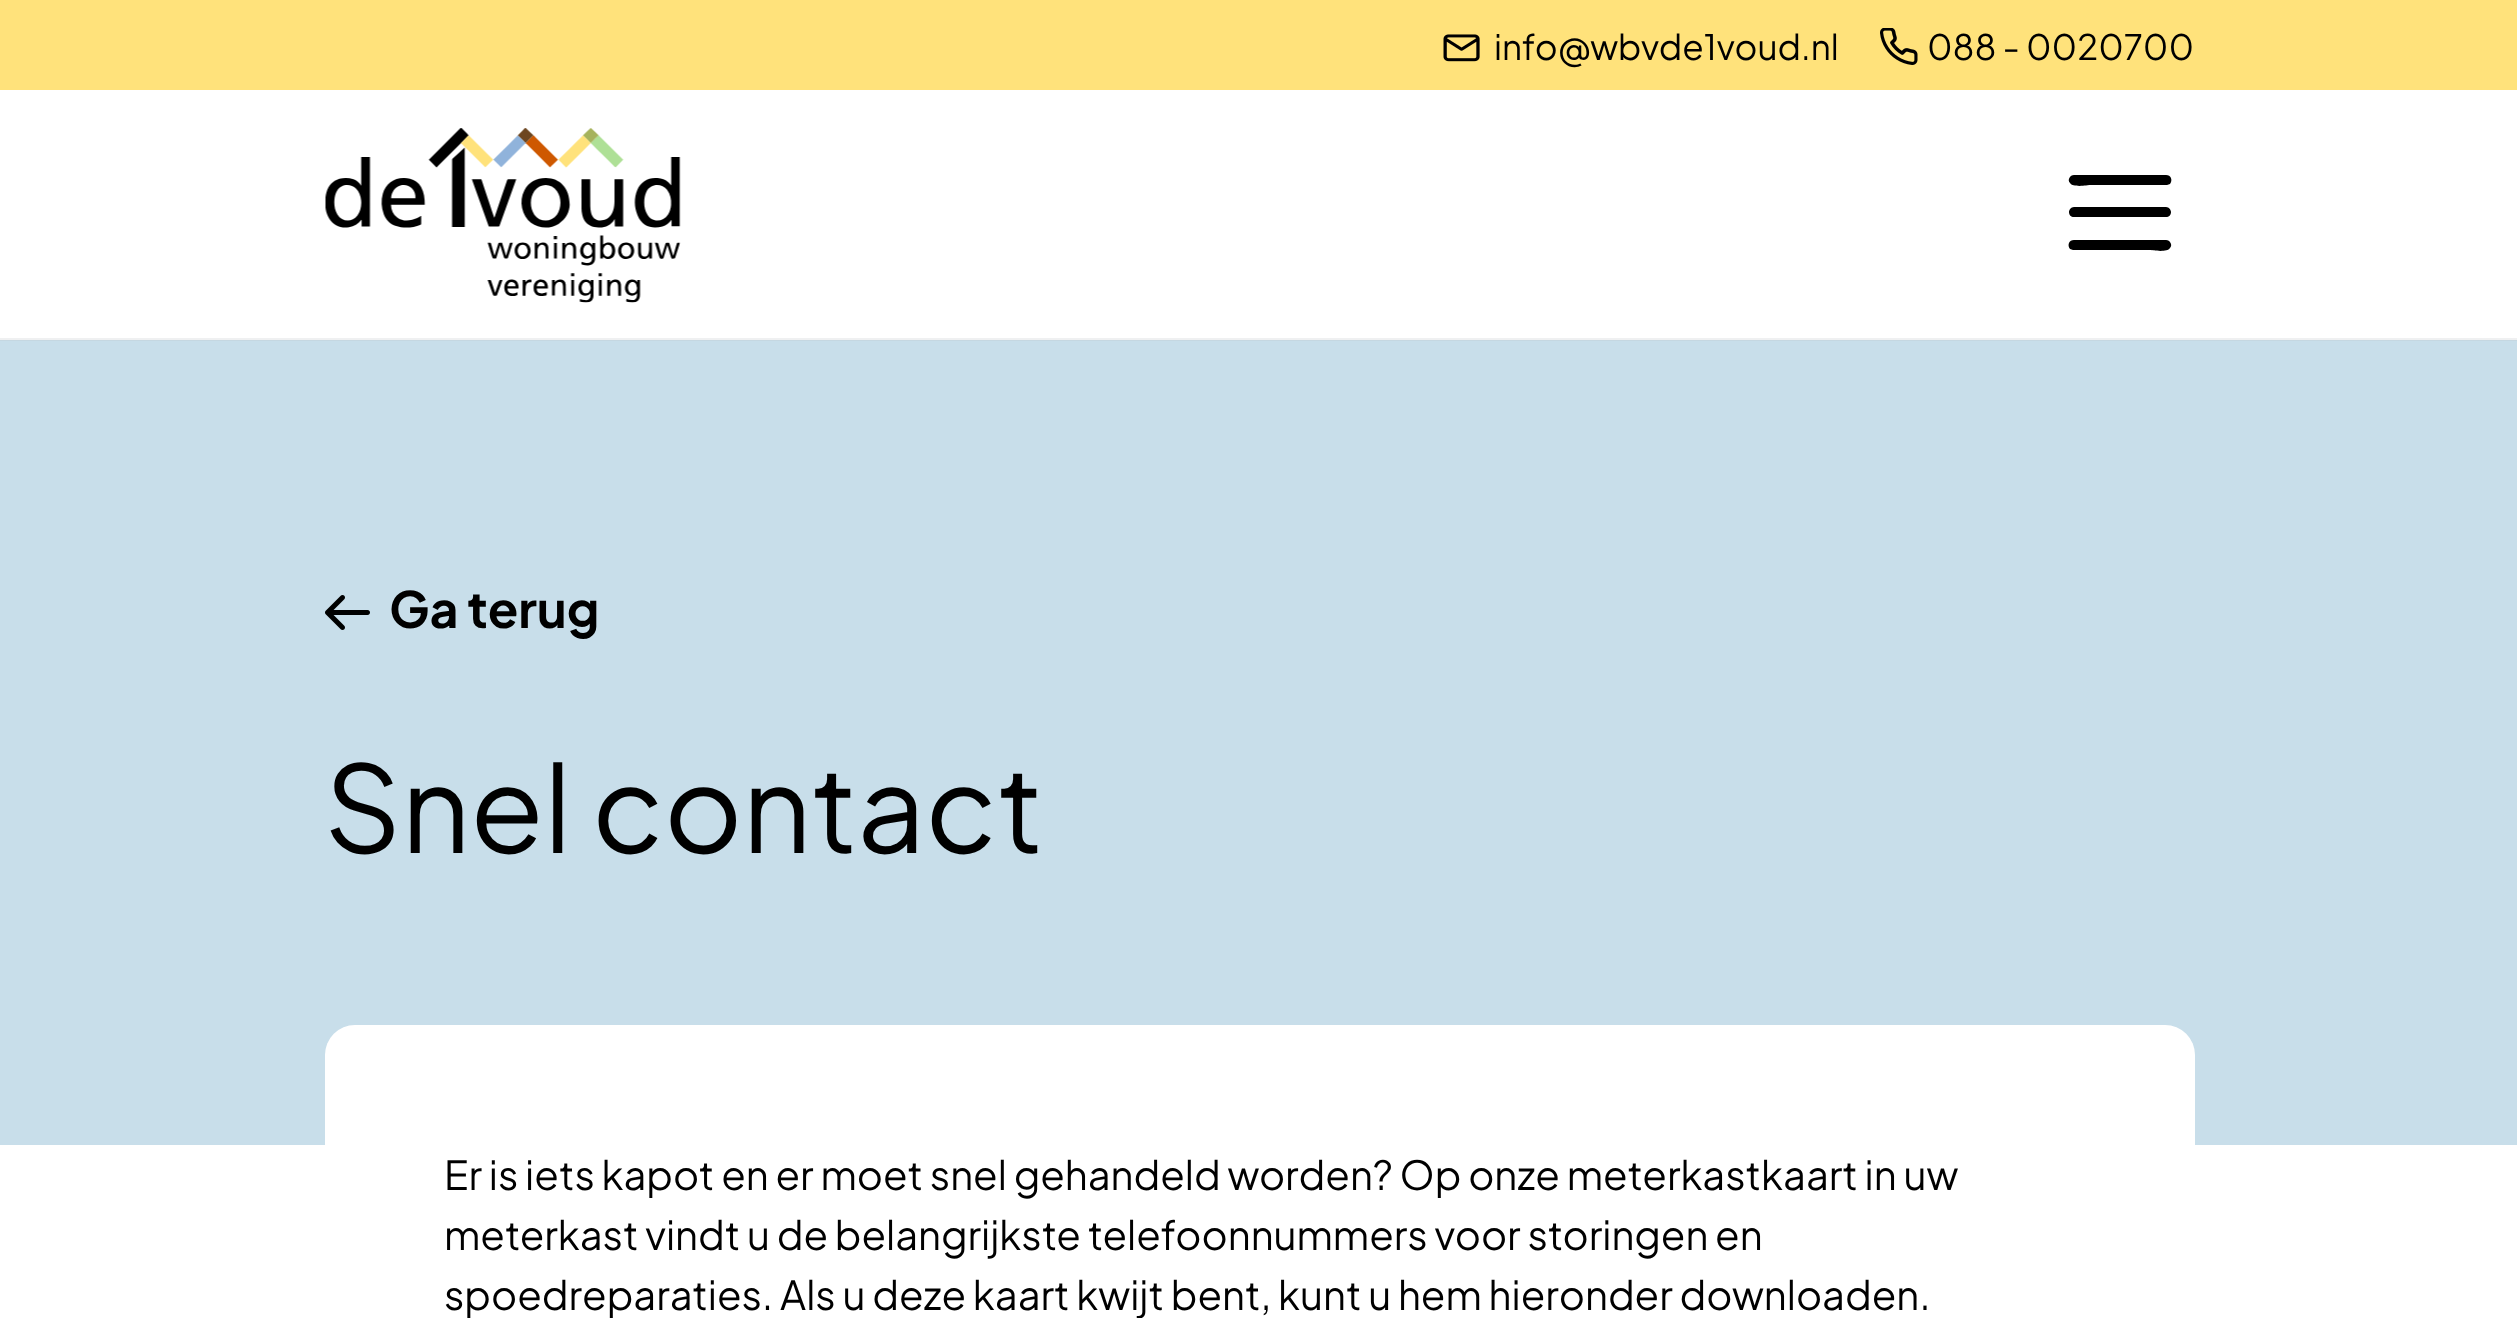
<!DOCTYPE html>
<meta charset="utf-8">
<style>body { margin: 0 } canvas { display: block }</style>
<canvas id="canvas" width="2517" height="1318"></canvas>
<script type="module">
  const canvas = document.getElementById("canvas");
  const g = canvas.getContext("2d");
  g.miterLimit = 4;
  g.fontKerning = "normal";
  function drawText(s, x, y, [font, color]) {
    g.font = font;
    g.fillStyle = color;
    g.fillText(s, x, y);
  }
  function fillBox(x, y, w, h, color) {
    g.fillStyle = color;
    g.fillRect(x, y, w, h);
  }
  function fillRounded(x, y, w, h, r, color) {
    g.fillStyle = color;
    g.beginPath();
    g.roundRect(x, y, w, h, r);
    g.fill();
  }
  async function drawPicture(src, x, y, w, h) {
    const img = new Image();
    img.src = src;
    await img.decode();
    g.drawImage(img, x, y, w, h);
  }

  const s1 = ["35px Plus Jakarta Sans", "#000000"];
  const s2 = ["bold 50px Plus Jakarta Sans", "#000000"];
  const s3 = ["120px Plus Jakarta Sans", "#000000"];
  const s4 = ["40px Plus Jakarta Sans", "#000000"];

  fillBox(0, 0, 2517, 1318, "#FFFFFF");
  fillBox(0, 0, 2517, 90, "#FFE27B");
  await drawPicture("pic1.png", 1443, 34, 37, 28);
  drawText("info@wbvde1voud.nl", 1494, 60, s1);
  await drawPicture("pic2.png", 1880, 28, 38, 37);
  drawText("088 - 0020700", 1927, 60, s1);
  fillBox(0, 338, 2517, 2, "#EFF0F1");
  await drawPicture("pic3.png", 325, 128, 356, 175);
  g.fillStyle = "#000000";
  g.beginPath();
  g.moveTo(2074, 175);
  g.bezierCurveTo(2070, 175, 2067, 180, 2070, 183);
  g.bezierCurveTo(2073, 188, 2089, 185, 2089, 185);
  g.lineTo(2167, 185);
  g.lineTo(2170, 184);
  g.bezierCurveTo(2173, 180, 2171, 175, 2166, 175);
  g.closePath();
  g.moveTo(2074, 207);
  g.bezierCurveTo(2071, 207, 2069, 210, 2069, 212);
  g.bezierCurveTo(2069, 215, 2071, 217, 2074, 217);
  g.lineTo(2166, 217);
  g.bezierCurveTo(2169, 217, 2171, 215, 2171, 212);
  g.bezierCurveTo(2171, 210, 2169, 207, 2166, 207);
  g.closePath();
  g.moveTo(2074, 240);
  g.bezierCurveTo(2069, 240, 2067, 245, 2070, 249);
  g.lineTo(2073, 250);
  g.lineTo(2151, 250);
  g.bezierCurveTo(2151, 250, 2167, 253, 2170, 248);
  g.bezierCurveTo(2173, 245, 2170, 240, 2166, 240);
  g.closePath();
  g.fill();
  fillBox(0, 341, 2517, 804, "#C8DEEA");
  fillBox(0, 340, 2517, 1, "#C5D7E1");
  await drawPicture("pic4.png", 325, 595, 45, 35);
  drawText("Ga terug", 389, 628, s2);
  drawText("Snel contact", 324, 853, s3);
  fillRounded(325, 1025, 1870, 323, 30, "#FFFFFF");
  drawText("Er is iets kapot en er moet snel gehandeld worden? Op onze meterkastkaart in uw", 444, 1190, s4);
  drawText("meterkast vindt u de belangrijkste telefoonnummers voor storingen en", 444, 1250, s4);
  drawText("spoedreparaties. Als u deze kaart kwijt bent, kunt u hem hieronder downloaden.", 444, 1310, s4);
</script>
